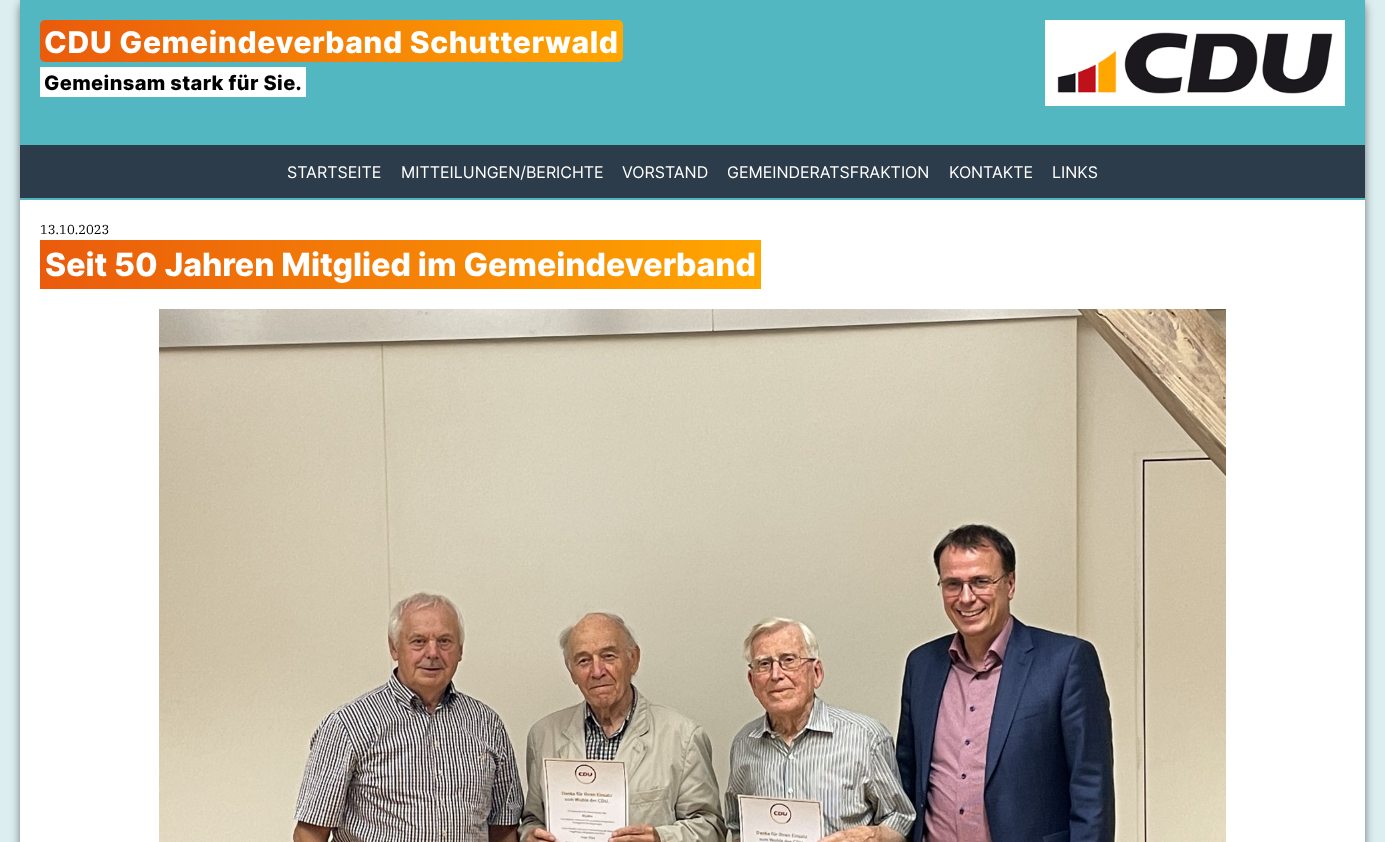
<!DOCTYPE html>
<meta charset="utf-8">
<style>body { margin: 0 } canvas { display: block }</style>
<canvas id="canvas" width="1385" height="842"></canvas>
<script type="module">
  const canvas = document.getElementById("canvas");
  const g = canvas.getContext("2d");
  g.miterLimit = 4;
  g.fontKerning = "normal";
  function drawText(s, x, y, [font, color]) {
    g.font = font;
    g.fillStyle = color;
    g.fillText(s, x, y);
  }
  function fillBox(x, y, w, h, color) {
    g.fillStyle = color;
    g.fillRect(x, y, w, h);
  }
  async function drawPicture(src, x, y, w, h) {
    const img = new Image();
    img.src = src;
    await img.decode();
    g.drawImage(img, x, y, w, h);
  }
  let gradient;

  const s1 = ["800 30px Inter", "#FFFFFF"];
  const s2 = ["800 20px Inter", "#000000"];
  const s3 = ["16px Inter", "#FFFFFF"];
  const s4 = ["13px IBM Plex Serif", "#000000"];
  const s5 = ["800 32px Inter", "#FFFFFF"];

  fillBox(0, 0, 1385, 842, "#DDEEF1");
  g.fillStyle = "rgba(0, 0, 0, 0.5)";
  g.filter = "blur(5px)";
  g.beginPath();
  g.roundRect(20, 0, 1345, 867, 10);
  g.fill();
  g.filter = "none";
  fillBox(20, 200, 1345, 642, "#FFFFFF");
  fillBox(20, 0, 1345, 200, "#52B7C1");
  gradient = g.createLinearGradient(40, 41, 623, 41);
  gradient.addColorStop(0, "#EA5B0C");
  gradient.addColorStop(1, "#FFA600");
  g.fillStyle = gradient;
  g.beginPath();
  g.roundRect(40, 20, 583, 42, 5);
  g.fill();
  g.letterSpacing = "0.6px";
  drawText("CDU Gemeindeverband Schutterwald", 44, 53, s1);
  fillBox(40, 67, 266, 30, "#FFFFFF");
  g.letterSpacing = "0.4px";
  drawText("Gemeinsam stark für Sie.", 44, 90, s2);
  await drawPicture("pic1.png", 1045, 20, 300, 86);
  fillBox(20, 145, 1345, 53, "#2D3C4B");
  g.letterSpacing = "0px";
  drawText("STARTSEITE", 287, 178, s3);
  drawText("MITTEILUNGEN/BERICHTE", 401, 178, s3);
  drawText("VORSTAND", 622, 178, s3);
  drawText("GEMEINDERATSFRAKTION", 727, 178, s3);
  drawText("KONTAKTE", 949, 178, s3);
  drawText("LINKS", 1052, 178, s3);
  drawText("13.10.2023", 40, 234, s4);
  gradient = g.createLinearGradient(40, 265, 761, 265);
  gradient.addColorStop(0, "#EA5B0C");
  gradient.addColorStop(1, "#FFA600");
  g.fillStyle = gradient;
  g.fillRect(40, 240, 721, 49);
  drawText("Seit 50 Jahren Mitglied im Gemeindeverband", 45, 276, s5);
  await drawPicture("pic2.png", 159, 309, 1067, 533);
</script>
